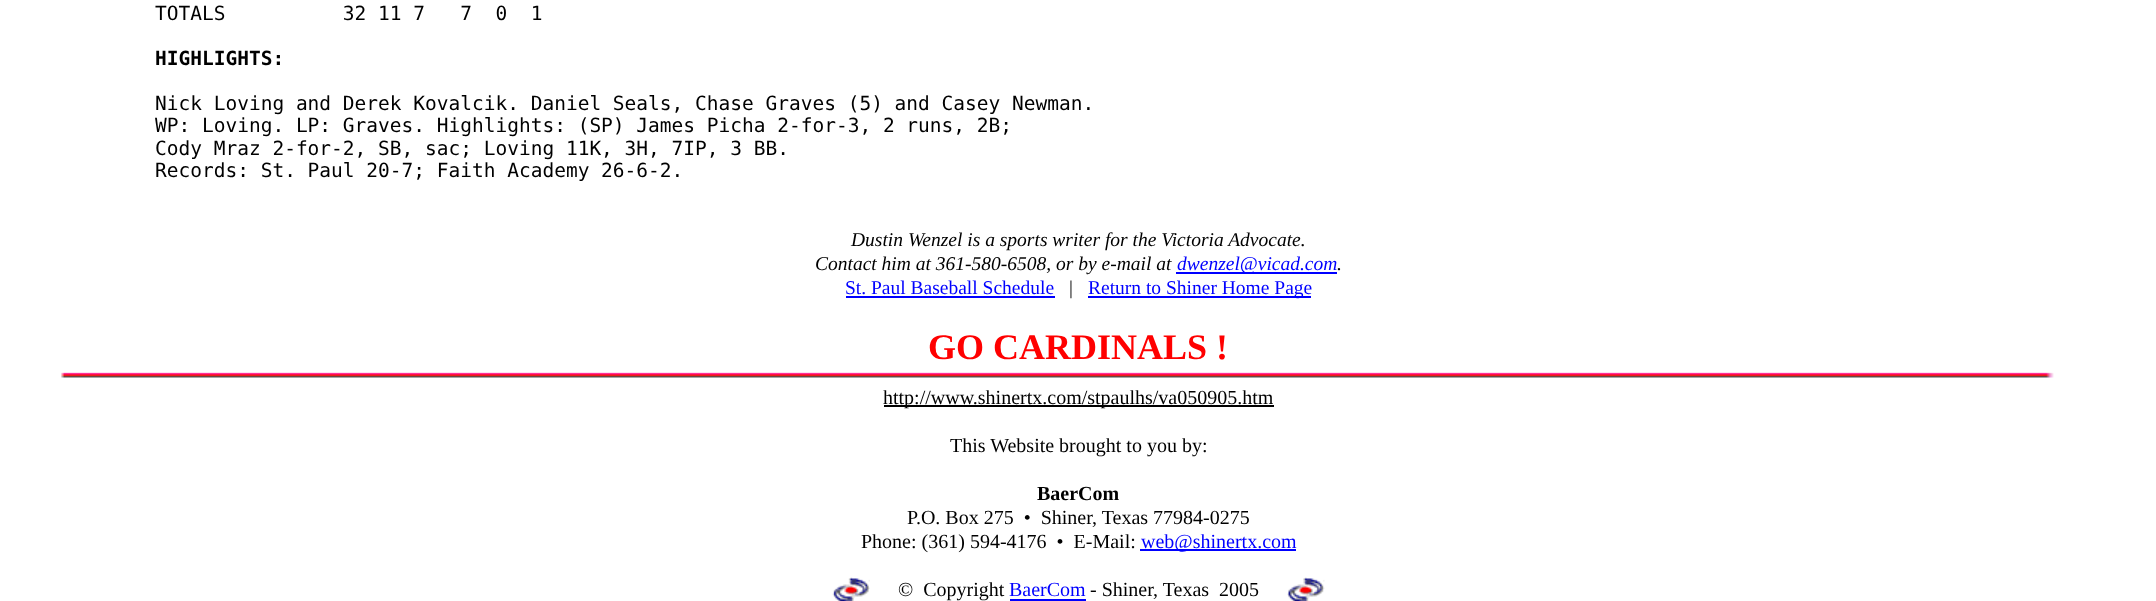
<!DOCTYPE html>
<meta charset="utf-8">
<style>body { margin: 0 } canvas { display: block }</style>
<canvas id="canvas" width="2156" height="601"></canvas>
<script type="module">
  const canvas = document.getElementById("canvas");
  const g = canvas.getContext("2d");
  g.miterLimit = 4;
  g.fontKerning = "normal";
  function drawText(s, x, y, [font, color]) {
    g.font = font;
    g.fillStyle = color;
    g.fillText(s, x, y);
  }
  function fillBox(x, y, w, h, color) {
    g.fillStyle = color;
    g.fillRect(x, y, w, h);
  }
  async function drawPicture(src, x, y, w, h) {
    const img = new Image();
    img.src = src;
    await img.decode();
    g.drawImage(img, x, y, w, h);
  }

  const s1 = ["19.5px DejaVu Sans Mono", "#000000"];
  const s2 = ["bold 19.5px DejaVu Sans Mono", "#000000"];
  const s3 = ["italic 19.5px Liberation Serif", "#000000"];
  const s4 = ["italic 19.5px Liberation Serif", "#0000FF"];
  const s5 = ["19.5px Liberation Serif", "#0000FF"];
  const s6 = ["19.5px Liberation Serif", "#000000"];
  const s7 = ["bold 36px Liberation Serif", "#FF0000"];
  const s8 = ["20px Liberation Serif", "#000000"];
  const s9 = ["bold 20px Liberation Serif", "#000000"];
  const s10 = ["20px Liberation Serif", "#0000FF"];

  fillBox(0, 0, 2156, 601, "#FFFFFF");
  drawText("TOTALS          32 11 7   7  0  1", 155, 20, s1);
  drawText("HIGHLIGHTS:", 155, 65, s2);
  drawText("Nick Loving and Derek Kovalcik. Daniel Seals, Chase Graves (5) and Casey Newman.", 155, 110, s1);
  drawText("WP: Loving. LP: Graves. Highlights: (SP) James Picha 2-for-3, 2 runs, 2B;", 155, 132, s1);
  drawText("Cody Mraz 2-for-2, SB, sac; Loving 11K, 3H, 7IP, 3 BB.", 155, 155, s1);
  drawText("Records: St. Paul 20-7; Faith Academy 26-6-2.", 155, 177, s1);
  drawText("Dustin Wenzel is a sports writer for the Victoria Advocate.", 851, 246, s3);
  drawText("Contact him at 361-580-6508, or by e-mail at", 815, 270, s3);
  fillBox(1176, 272, 161, 2, "#0000FF");
  drawText("dwenzel@vicad.com", 1177, 270, s4);
  drawText(".", 1337, 270, s3);
  drawText("St. Paul Baseball Schedule", 845, 294, s5);
  fillBox(846, 296, 209, 2, "#0000FF");
  drawText("|", 1069, 294, s6);
  fillBox(1088, 296, 223, 2, "#0000FF");
  drawText("Return to Shiner Home Page", 1088, 294, s5);
  drawText("GO CARDINALS !", 928, 359, s7);
  await drawPicture("pic1.png", 61, 372, 1993, 6);
  fillBox(884, 405, 390, 2, "#000000");
  drawText("http://www.shinertx.com/stpaulhs/va050905.htm", 883, 404, s8);
  drawText("This Website brought to you by:", 950, 452, s8);
  drawText("BaerCom", 1037, 500, s9);
  drawText("P.O. Box 275  •  Shiner, Texas 77984-0275", 907, 524, s8);
  drawText("Phone: (361) 594-4176  •  E-Mail:", 861, 548, s8);
  fillBox(1140, 549, 156, 2, "#0000FF");
  drawText("web@shinertx.com", 1141, 548, s10);
  await drawPicture("pic2.png", 832, 577, 38, 24);
  drawText("©  Copyright", 898, 596, s8);
  drawText("BaerCom", 1009, 596, s10);
  fillBox(1010, 599, 76, 2, "#0000FF");
  drawText("- Shiner, Texas  2005", 1090, 596, s8);
  await drawPicture("pic3.png", 1287, 577, 38, 24);
</script>
